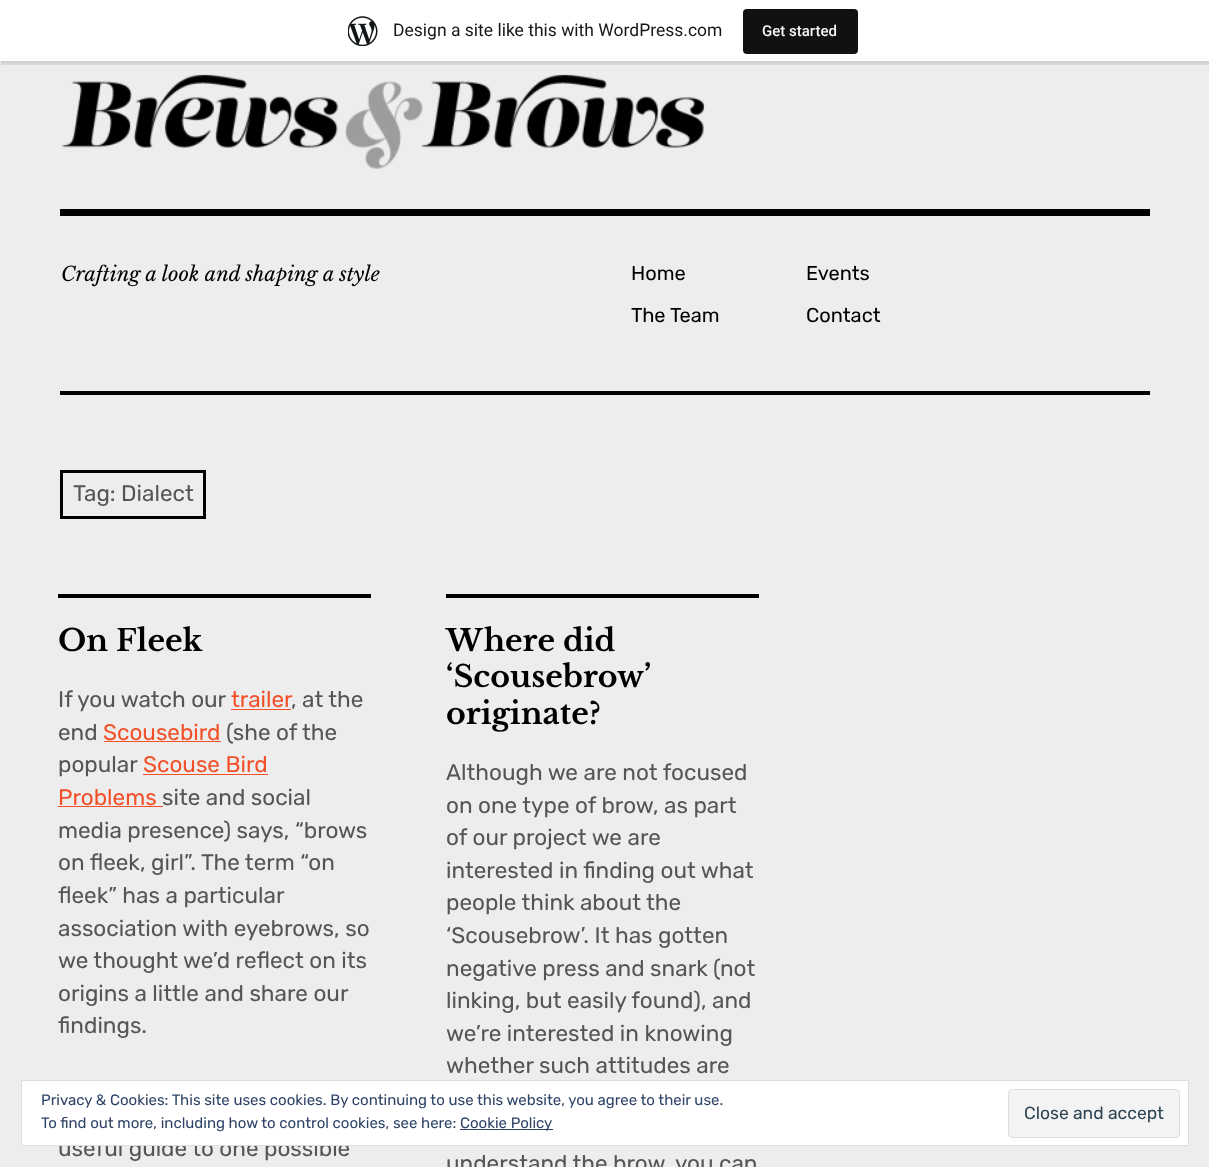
<!DOCTYPE html>
<meta charset="utf-8">
<style>body { margin: 0 } canvas { display: block }</style>
<canvas id="canvas" width="1209" height="1167"></canvas>
<script type="module">
  const canvas = document.getElementById("canvas");
  const g = canvas.getContext("2d");
  g.miterLimit = 4;
  g.fontKerning = "normal";
  function drawText(s, x, y, [font, color]) {
    g.font = font;
    g.fillStyle = color;
    g.fillText(s, x, y);
  }
  function fillBox(x, y, w, h, color) {
    g.fillStyle = color;
    g.fillRect(x, y, w, h);
  }
  function fillRounded(x, y, w, h, r, color) {
    g.fillStyle = color;
    g.beginPath();
    g.roundRect(x, y, w, h, r);
    g.fill();
  }
  async function drawPicture(src, x, y, w, h) {
    const img = new Image();
    img.src = src;
    await img.decode();
    g.drawImage(img, x, y, w, h);
  }

  const s1 = ["17.5px Roboto", "#171717"];
  const s2 = ["500 15px Roboto", "#F6F7F7"];
  const s3 = ["italic 20px Libre Baskerville", "#000000"];
  const s4 = ["20px Rubik", "#000000"];
  const s5 = ["22.5px Rubik", "#555555"];
  const s6 = ["bold 30px Libre Baskerville", "#000000"];
  const s7 = ["22.5px Rubik", "#F35029"];
  const s8 = ["15px Rubik", "#2E4467"];
  const s9 = ["17.5px Rubik", "#2E4453"];

  fillBox(0, 0, 1209, 1167, "#EDEDED");
  g.fillStyle = "rgba(0, 0, 0, 0.05)";
  g.filter = "blur(1px)";
  g.beginPath();
  g.rect(0, 1, 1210, 62);
  g.fill();
  g.filter = "none";
  g.fillStyle = "rgba(0, 0, 0, 0.08)";
  g.beginPath();
  g.moveTo(1, 61);
  g.lineTo(1, 65);
  g.lineTo(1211, 65);
  g.lineTo(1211, 4);
  g.lineTo(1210, 4);
  g.lineTo(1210, 61);
  g.closePath();
  g.fill();
  fillBox(0, 0, 1209, 61, "#FFFFFF");
  await drawPicture("pic1.png", 348, 16, 30, 30);
  drawText("Design a site like this with WordPress.com", 393, 36, s1);
  fillRounded(743, 9, 115, 45, 4, "#111111");
  drawText("Get started", 762, 36, s2);
  fillBox(60, 209, 1090, 7, "#000000");
  await drawPicture("pic2.png", 62, 74, 643, 95);
  drawText("Crafting a look and shaping a style", 61, 281, s3);
  drawText("Home", 631, 280, s4);
  drawText("The Team", 631, 322, s4);
  drawText("Events", 806, 280, s4);
  drawText("Contact", 806, 322, s4);
  fillBox(60, 391, 1090, 4, "#000000");
  g.strokeStyle = "#000000";
  g.lineWidth = 3;
  g.strokeRect(61.5, 471.5, 143, 46);
  drawText("Tag: Dialect", 73, 501, s5);
  fillBox(58, 594, 313, 4, "#000000");
  drawText("On Fleek", 58, 651, s6);
  drawText("If you watch our", 58, 707, s5);
  drawText("trailer", 231, 707, s7);
  fillBox(231, 709, 60, 1, "#F35029");
  drawText(", at the", 291, 707, s5);
  drawText("end", 58, 740, s5);
  drawText("Scousebird", 103, 740, s7);
  fillBox(104, 741, 117, 1, "#F35029");
  drawText("(she of the", 226, 740, s5);
  drawText("popular", 58, 772, s5);
  drawText("Scouse Bird", 143, 772, s7);
  fillBox(143, 774, 125, 1, "#F35029");
  drawText("Problems", 58, 805, s7);
  fillBox(58, 806, 105, 1, "#F35029");
  drawText("site and social", 162, 805, s5);
  drawText("media presence) says, “brows", 58, 838, s5);
  drawText("on fleek, girl”. The term “on", 58, 870, s5);
  drawText("fleek” has a particular", 58, 903, s5);
  drawText("association with eyebrows, so", 58, 936, s5);
  drawText("we thought we’d reflect on its", 58, 968, s5);
  drawText("origins a little and share our", 58, 1001, s5);
  drawText("findings.", 58, 1033, s5);
  drawText("useful guide to one possible", 58, 1156, s5);
  fillBox(446, 594, 313, 4, "#000000");
  drawText("Where did", 446, 651, s6);
  drawText("‘Scousebrow’", 446, 687, s6);
  drawText("originate?", 446, 724, s6);
  drawText("Although we are not focused", 446, 780, s5);
  drawText("on one type of brow, as part", 446, 813, s5);
  drawText("of our project we are", 446, 845, s5);
  drawText("interested in finding out what", 446, 878, s5);
  drawText("people think about the", 446, 910, s5);
  drawText("‘Scousebrow’. It has gotten", 446, 943, s5);
  drawText("negative press and snark (not", 446, 976, s5);
  drawText("linking, but easily found), and", 446, 1008, s5);
  drawText("we’re interested in knowing", 446, 1041, s5);
  drawText("whether such attitudes are", 446, 1073, s5);
  drawText("understand the brow, you can", 446, 1171, s5);
  g.fillStyle = "#FFFFFF";
  g.beginPath();
  g.rect(21.5, 1080.5, 1167, 65);
  g.fill();
  g.strokeStyle = "#DEDEDE";
  g.lineWidth = 1;
  g.stroke();
  drawText("Privacy & Cookies: This site uses cookies. By continuing to use this website, you agree to their use.", 41, 1105, s8);
  drawText("To find out more, including how to control cookies, see here:", 41, 1128, s8);
  fillBox(460, 1129, 93, 1, "#2E4467");
  drawText("Cookie Policy", 460, 1128, s8);
  g.fillStyle = "#F3F3F3";
  g.beginPath();
  g.roundRect(1008.5, 1089.5, 171, 48, 3.5);
  g.fill();
  g.stroke();
  drawText("Close and accept", 1024, 1119, s9);
</script>
